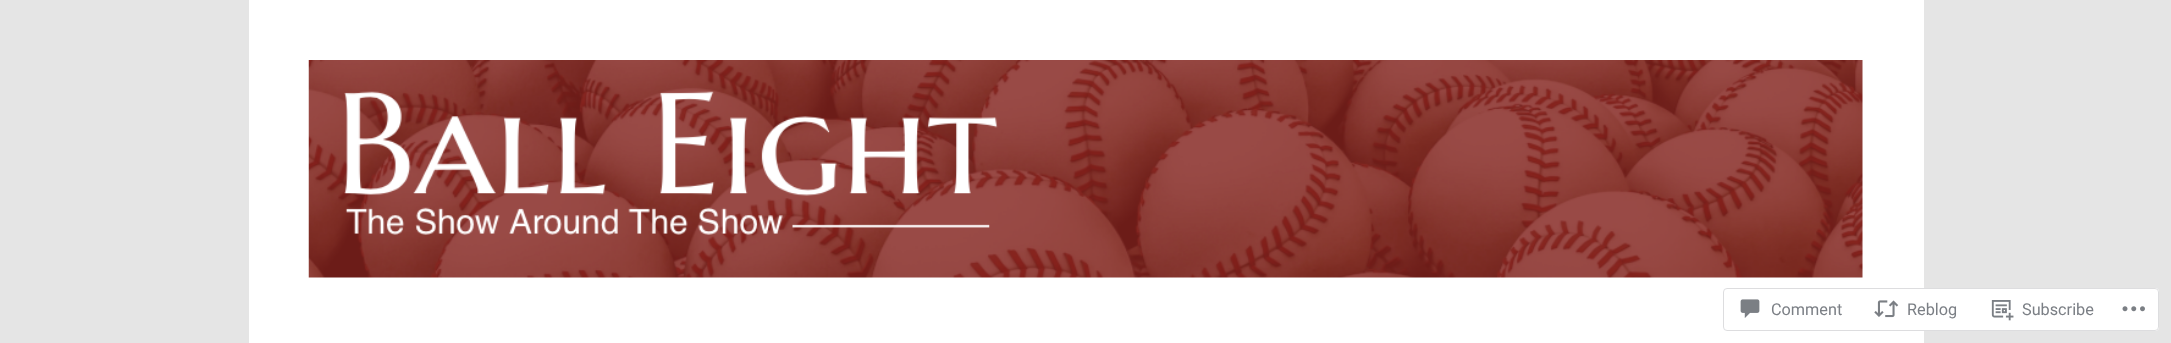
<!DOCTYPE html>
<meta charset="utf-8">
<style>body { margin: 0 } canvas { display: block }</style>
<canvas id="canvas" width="2171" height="343"></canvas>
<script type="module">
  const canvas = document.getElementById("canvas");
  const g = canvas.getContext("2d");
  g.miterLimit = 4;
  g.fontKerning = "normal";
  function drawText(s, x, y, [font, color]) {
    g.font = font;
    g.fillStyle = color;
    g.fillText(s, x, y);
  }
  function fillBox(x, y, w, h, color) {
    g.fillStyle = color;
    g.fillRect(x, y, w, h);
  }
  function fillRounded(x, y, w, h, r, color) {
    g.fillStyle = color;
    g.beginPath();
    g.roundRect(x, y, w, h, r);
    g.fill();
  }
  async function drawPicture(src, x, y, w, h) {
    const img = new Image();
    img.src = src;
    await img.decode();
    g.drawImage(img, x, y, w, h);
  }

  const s1 = ["16.25px Roboto", "#7B7F85"];

  fillBox(0, 0, 2171, 343, "#E5E5E5");
  fillBox(249, 0, 1675, 343, "#FFFFFF");
  await drawPicture("pic1.png", 308, 60, 1555, 218);
  fillRounded(1723, 288, 436, 43, 4, "rgba(255, 255, 255, 0.98)");
  g.beginPath();
  g.roundRect(1723.5, 288.5, 435, 42, 3.5);
  g.strokeStyle = "rgba(220, 220, 222, 0.98)";
  g.stroke();
  await drawPicture("pic2.png", 1740, 299, 20, 19);
  drawText("Comment", 1771, 315, s1);
  await drawPicture("pic3.png", 1874, 300, 25, 18);
  drawText("Reblog", 1907, 315, s1);
  await drawPicture("pic4.png", 1991, 300, 23, 21);
  drawText("Subscribe", 2022, 315, s1);
  await drawPicture("pic5.png", 2122, 306, 23, 6);
</script>
